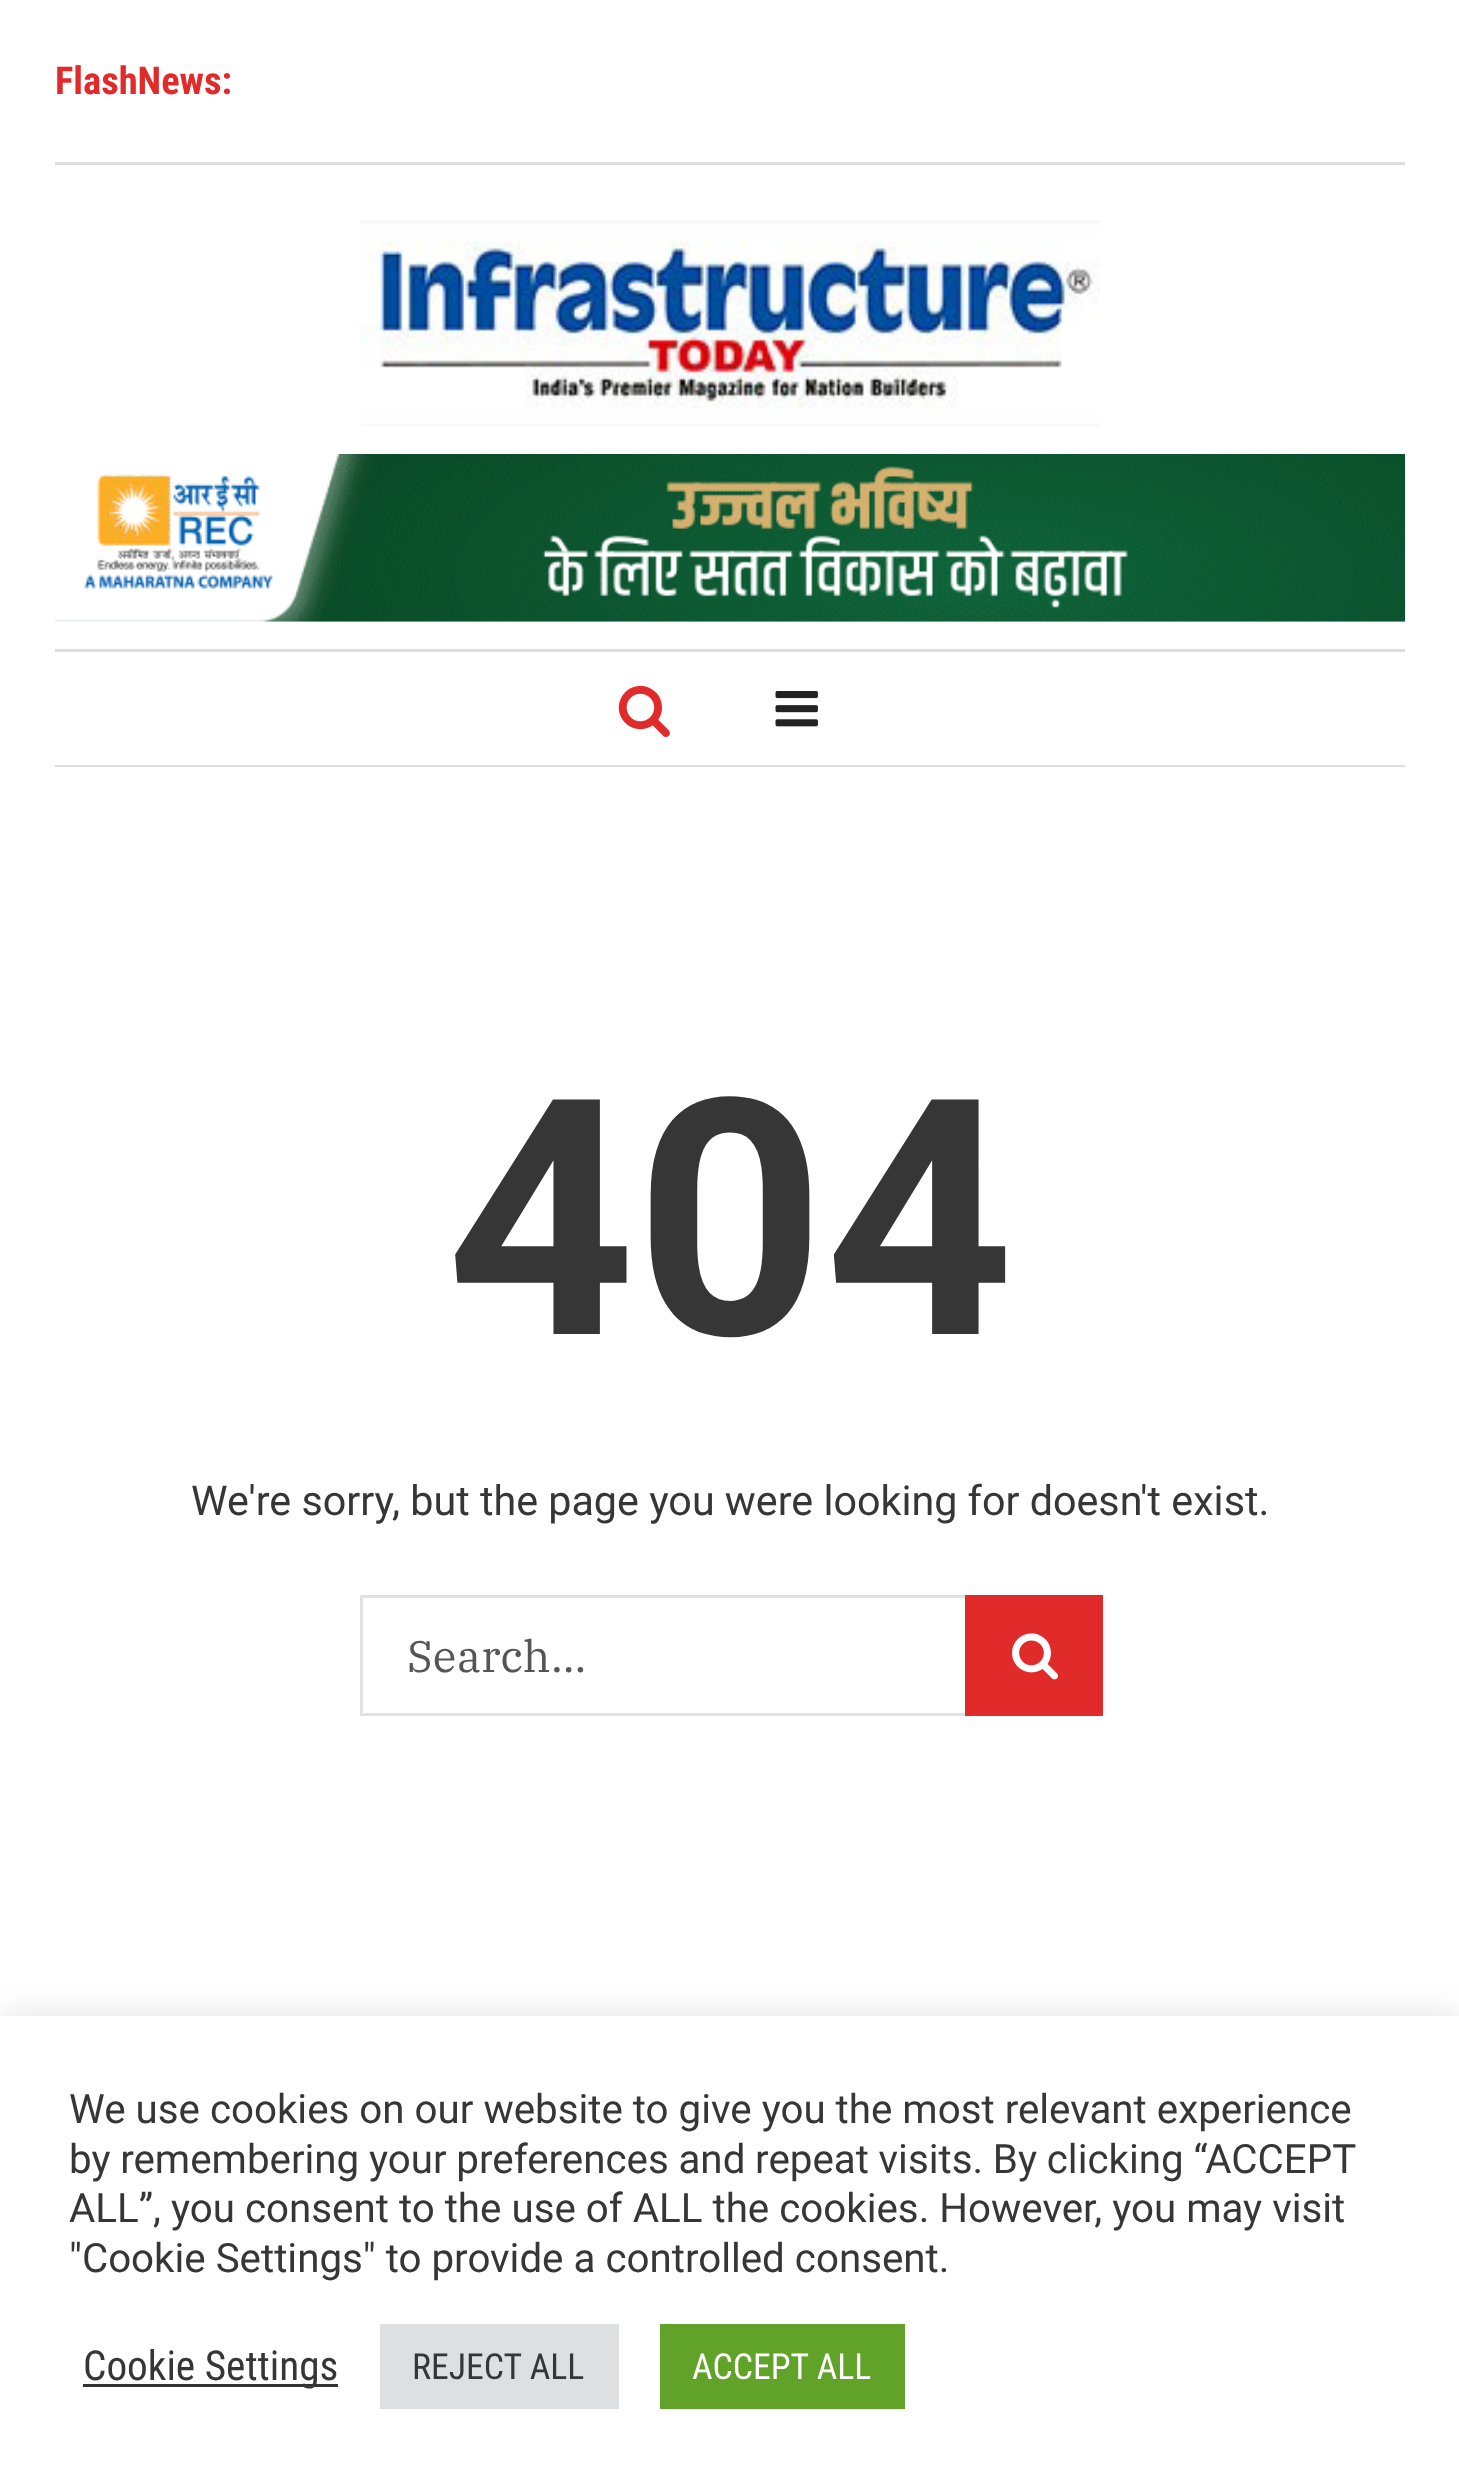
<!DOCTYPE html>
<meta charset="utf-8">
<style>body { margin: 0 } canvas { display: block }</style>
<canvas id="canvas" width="1459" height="2491"></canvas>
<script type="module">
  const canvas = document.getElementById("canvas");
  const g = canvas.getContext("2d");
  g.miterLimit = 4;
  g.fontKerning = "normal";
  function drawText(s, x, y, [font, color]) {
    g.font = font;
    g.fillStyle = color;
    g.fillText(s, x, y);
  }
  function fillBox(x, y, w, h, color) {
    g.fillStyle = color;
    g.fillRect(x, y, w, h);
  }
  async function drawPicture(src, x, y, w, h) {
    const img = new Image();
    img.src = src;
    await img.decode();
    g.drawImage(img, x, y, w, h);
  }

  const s1 = ["bold 38.5px Roboto Condensed", "#E12B2B"];
  const s2 = ["bold 330px Roboto", "#363636"];
  const s3 = ["41.25px Roboto", "#363636"];
  const s4 = ["44px IBM Plex Serif", "#555555"];
  const s5 = ["40.3px Roboto", "#363636"];
  const s6 = ["41.25px Roboto Condensed", "#363636"];
  const s7 = ["35.75px Roboto Condensed", "#363636"];
  const s8 = ["35.75px Roboto Condensed", "#FFFFFF"];

  fillBox(0, 0, 1459, 2491, "#FFFFFF");
  fillBox(55, 162, 1350, 3, "#DEDEDE");
  drawText("FlashNews:", 55, 94, s1);
  fillBox(55, 649, 1350, 3, "#DEDEDE");
  await drawPicture("pic1.png", 360, 220, 740, 207);
  await drawPicture("pic2.png", 55, 454, 1351, 168);
  fillBox(55, 765, 1350, 2, "#DEDEDE");
  await drawPicture("pic3.png", 618, 685, 52, 52);
  await drawPicture("pic4.png", 775, 691, 43, 36);
  drawText("404", 446, 1334, s2);
  drawText("We're sorry, but the page you were looking for doesn't exist.", 191, 1515, s3);
  g.strokeStyle = "#E1E1E1";
  g.lineWidth = 3;
  g.strokeRect(361.5, 1596.5, 740, 118);
  drawText("Search...", 407, 1672, s4);
  fillBox(965, 1595, 138, 121, "#E12B2B");
  await drawPicture("pic5.png", 1012, 1633, 46, 47);
  g.fillStyle = "rgba(172, 171, 171, 0.3)";
  g.filter = "blur(14px)";
  g.beginPath();
  g.rect(0, 2013, 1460, 476);
  g.fill();
  g.filter = "none";
  fillBox(0, 2016, 1459, 475, "#FFFFFF");
  drawText("We use cookies on our website to give you the most relevant experience", 69, 2123, s5);
  g.wordSpacing = "-0.25px";
  drawText("by remembering your preferences and repeat visits. By clicking “ACCEPT", 69, 2173, s5);
  g.wordSpacing = "0px";
  drawText("ALL”, you consent to the use of ALL the cookies. However, you may visit", 69, 2222, s5);
  drawText("\"Cookie Settings\" to provide a controlled consent.", 69, 2272, s5);
  fillBox(83, 2384, 255, 3, "#333333");
  drawText("Cookie Settings", 83, 2380, s6);
  fillBox(380, 2324, 239, 85, "#DEDFE0");
  drawText("REJECT ALL", 412, 2379, s7);
  fillBox(660, 2324, 245, 85, "#61A229");
  drawText("ACCEPT ALL", 692, 2379, s8);
</script>
